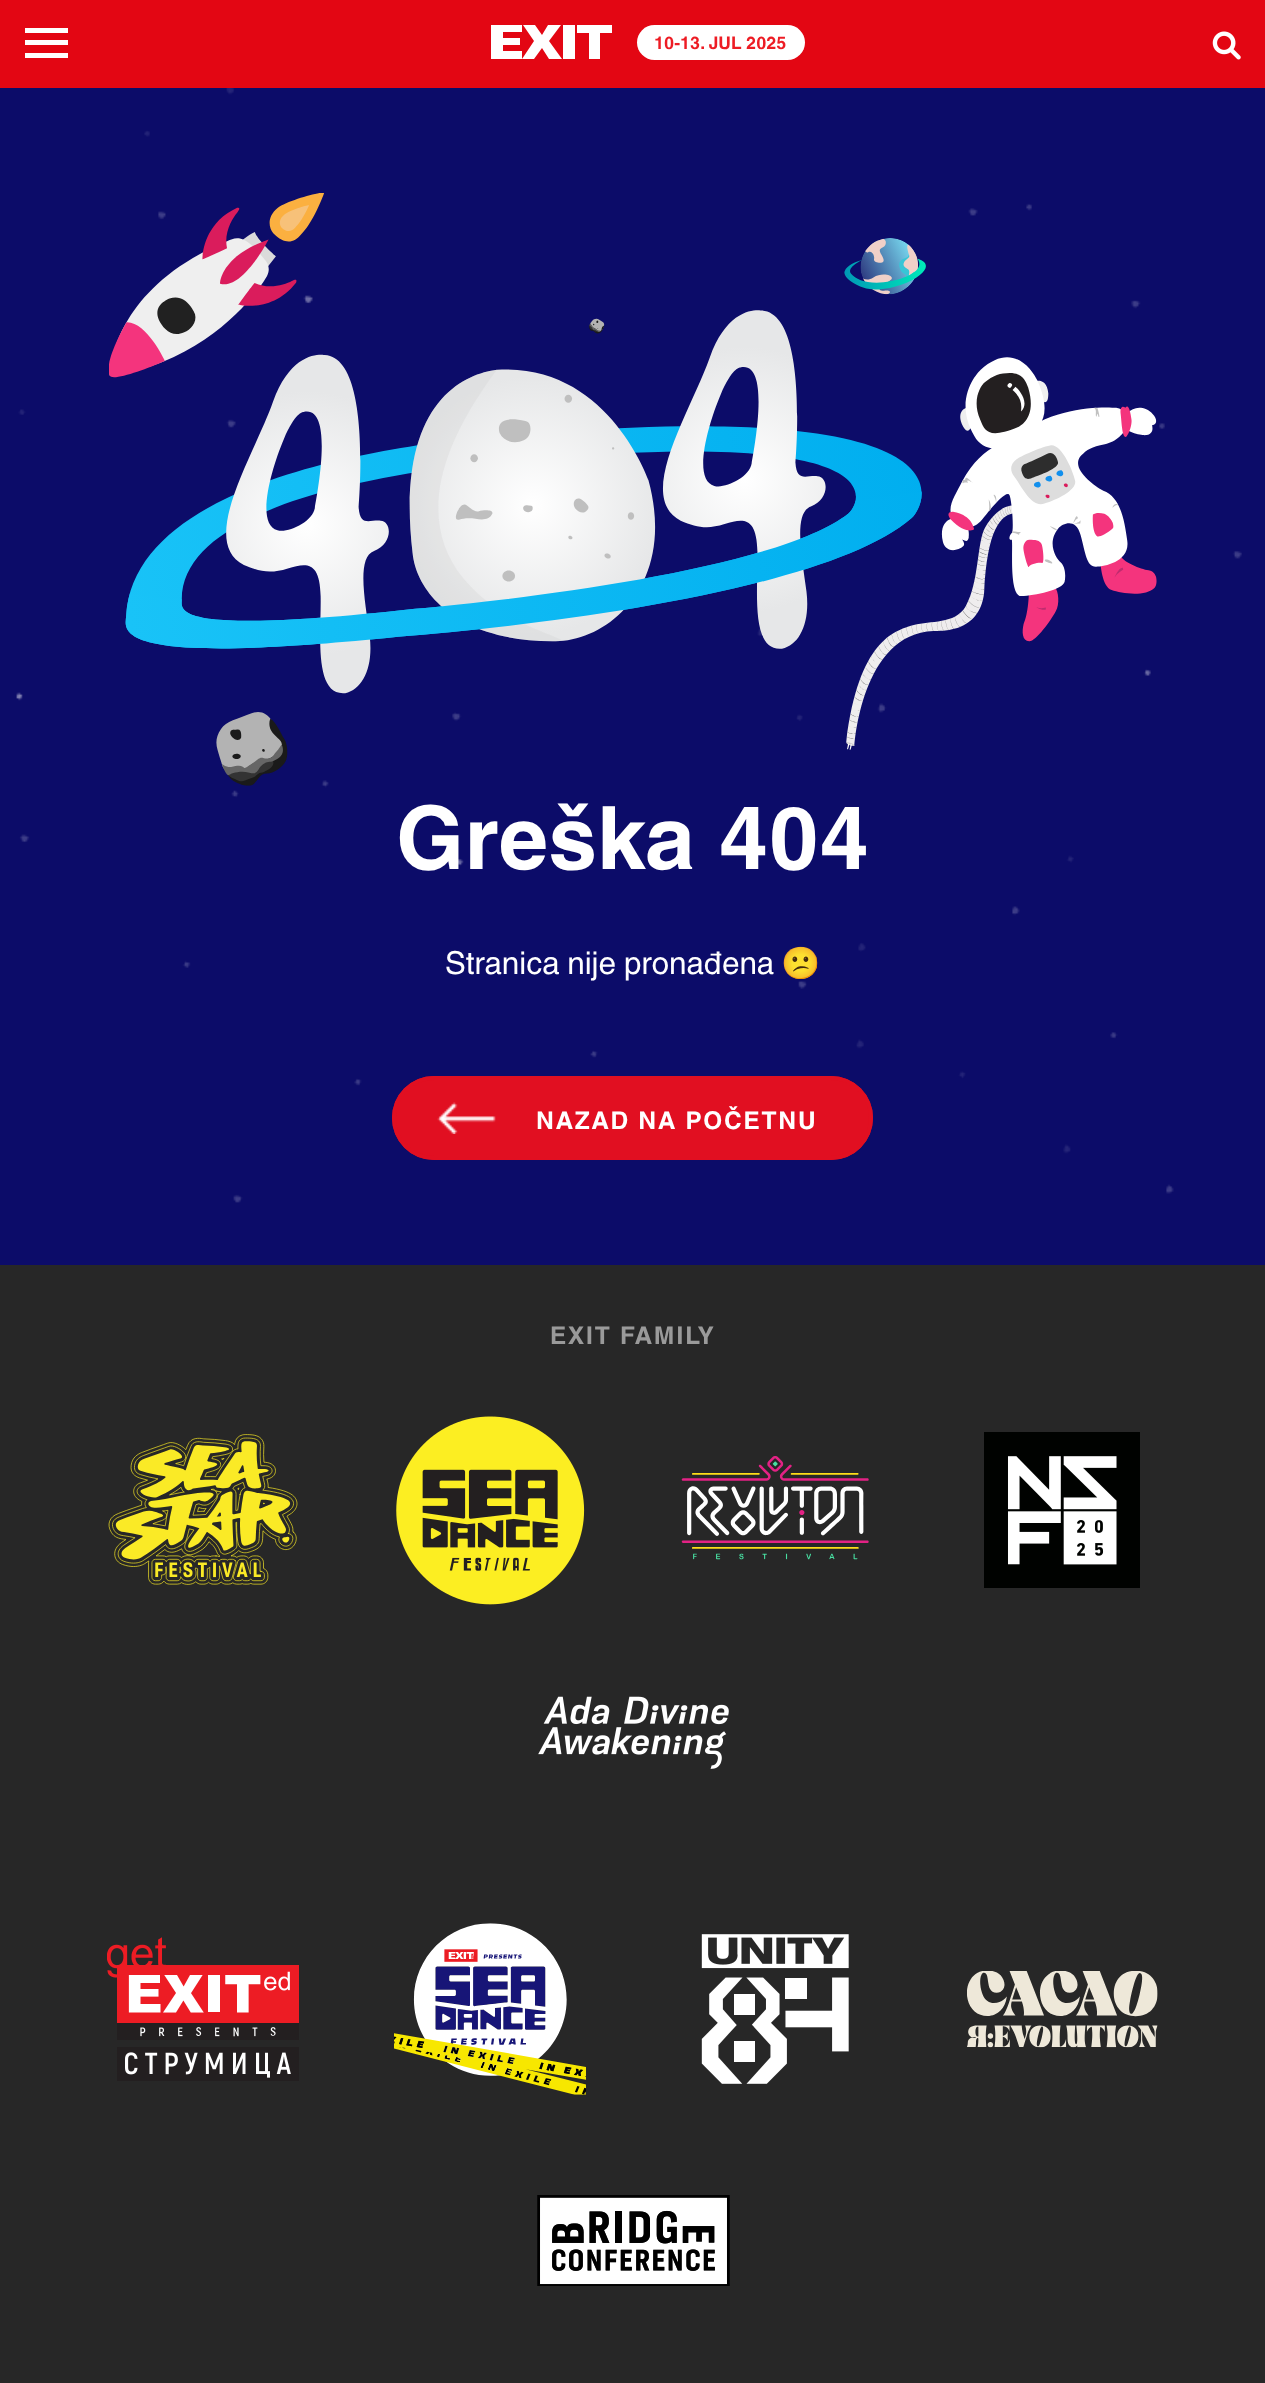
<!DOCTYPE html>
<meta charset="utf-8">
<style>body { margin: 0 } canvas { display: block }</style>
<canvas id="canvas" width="1265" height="2383"></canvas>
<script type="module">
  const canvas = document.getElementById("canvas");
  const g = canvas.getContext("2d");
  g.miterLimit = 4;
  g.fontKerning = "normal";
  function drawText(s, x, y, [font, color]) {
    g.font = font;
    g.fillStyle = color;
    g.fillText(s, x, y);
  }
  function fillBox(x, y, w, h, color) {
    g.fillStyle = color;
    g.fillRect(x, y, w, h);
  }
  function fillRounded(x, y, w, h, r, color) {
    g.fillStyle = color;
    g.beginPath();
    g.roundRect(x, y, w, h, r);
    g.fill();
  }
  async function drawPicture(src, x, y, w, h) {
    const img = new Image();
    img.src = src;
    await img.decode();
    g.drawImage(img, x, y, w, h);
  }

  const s1 = ["bold 17.5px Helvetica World", "#ED1C24"];
  const s2 = ["bold 87.5px Helvetica World", "#FFFFFF"];
  const s3 = ["31.5px Helvetica World", "#FFFFFF"];
  const s4 = ["31.5px Noto Color Emoji", "#FFFFFF"];
  const s5 = ["bold 24.5px Helvetica World", "#FFFFFF"];
  const s6 = ["bold 24.5px Helvetica World", "#9A9A9A"];

  fillBox(0, 0, 1265, 2383, "#0C0C69");
  fillBox(0, 0, 1265, 88, "#E30613");
  fillBox(25, 28, 43, 5, "#FFFFFF");
  fillBox(25, 40, 43, 5, "#FFFFFF");
  fillBox(25, 53, 43, 5, "#FFFFFF");
  g.beginPath();
  g.moveTo(577, 25);
  g.lineTo(612, 25);
  g.lineTo(612, 33);
  g.lineTo(600, 33);
  g.lineTo(600, 59);
  g.lineTo(589, 59);
  g.lineTo(589, 33);
  g.lineTo(577, 33);
  g.closePath();
  g.moveTo(563, 25);
  g.lineTo(575, 25);
  g.lineTo(575, 59);
  g.lineTo(563, 59);
  g.closePath();
  g.moveTo(523, 25);
  g.lineTo(535, 25);
  g.lineTo(542, 35);
  g.lineTo(548, 25);
  g.lineTo(561, 25);
  g.lineTo(549, 41);
  g.lineTo(562, 59);
  g.lineTo(549, 59);
  g.lineTo(542, 48);
  g.lineTo(534, 59);
  g.lineTo(522, 59);
  g.lineTo(534, 41);
  g.closePath();
  g.moveTo(491, 25);
  g.lineTo(522, 25);
  g.lineTo(522, 32);
  g.lineTo(503, 32);
  g.lineTo(503, 38);
  g.lineTo(520, 38);
  g.lineTo(520, 45);
  g.lineTo(503, 45);
  g.lineTo(503, 51);
  g.lineTo(522, 51);
  g.lineTo(522, 59);
  g.lineTo(491, 59);
  g.closePath();
  g.fill();
  fillRounded(637, 25, 168, 35, 17.5, "#FFFFFF");
  drawText("10-13. JUL 2025", 654, 49, s1);
  await drawPicture("pic1.png", 1212, 31, 29, 29);
  await drawPicture("pic2.png", 16, 88, 1226, 1115);
  await drawPicture("pic3.png", 109, 193, 1048, 593);
  drawText("Greška 404", 396, 869, s2);
  drawText("Stranica nije pronađena", 445, 974, s3);
  drawText("😕", 781, 974, s4);
  fillRounded(392, 1076, 481, 84, 42, "#E10F21");
  await drawPicture("pic4.png", 437, 1102, 59, 32);
  g.beginPath();
  g.roundRect(394, 1078, 477, 80, 40);
  g.strokeStyle = "#E10F21";
  g.lineWidth = 4;
  g.stroke();
  g.letterSpacing = "1.75px";
  drawText("NAZAD NA POČETNU", 536, 1129, s5);
  fillBox(0, 1265, 1265, 1118, "#272727");
  drawText("EXIT FAMILY", 550, 1344, s6);
  await drawPicture("pic5.png", 108, 1434, 190, 151);
  await drawPicture("pic6.png", 396, 1416, 189, 189);
  await drawPicture("pic7.png", 681, 1456, 188, 104);
  await drawPicture("pic8.png", 984, 1432, 156, 156);
  await drawPicture("pic9.png", 538, 1696, 191, 73);
  await drawPicture("pic10.png", 107, 1937, 192, 144);
  await drawPicture("pic11.png", 394, 1923, 192, 172);
  await drawPicture("pic12.png", 701, 1934, 148, 150);
  await drawPicture("pic13.png", 967, 1971, 191, 77);
  await drawPicture("pic14.png", 537, 2195, 193, 91);
</script>
